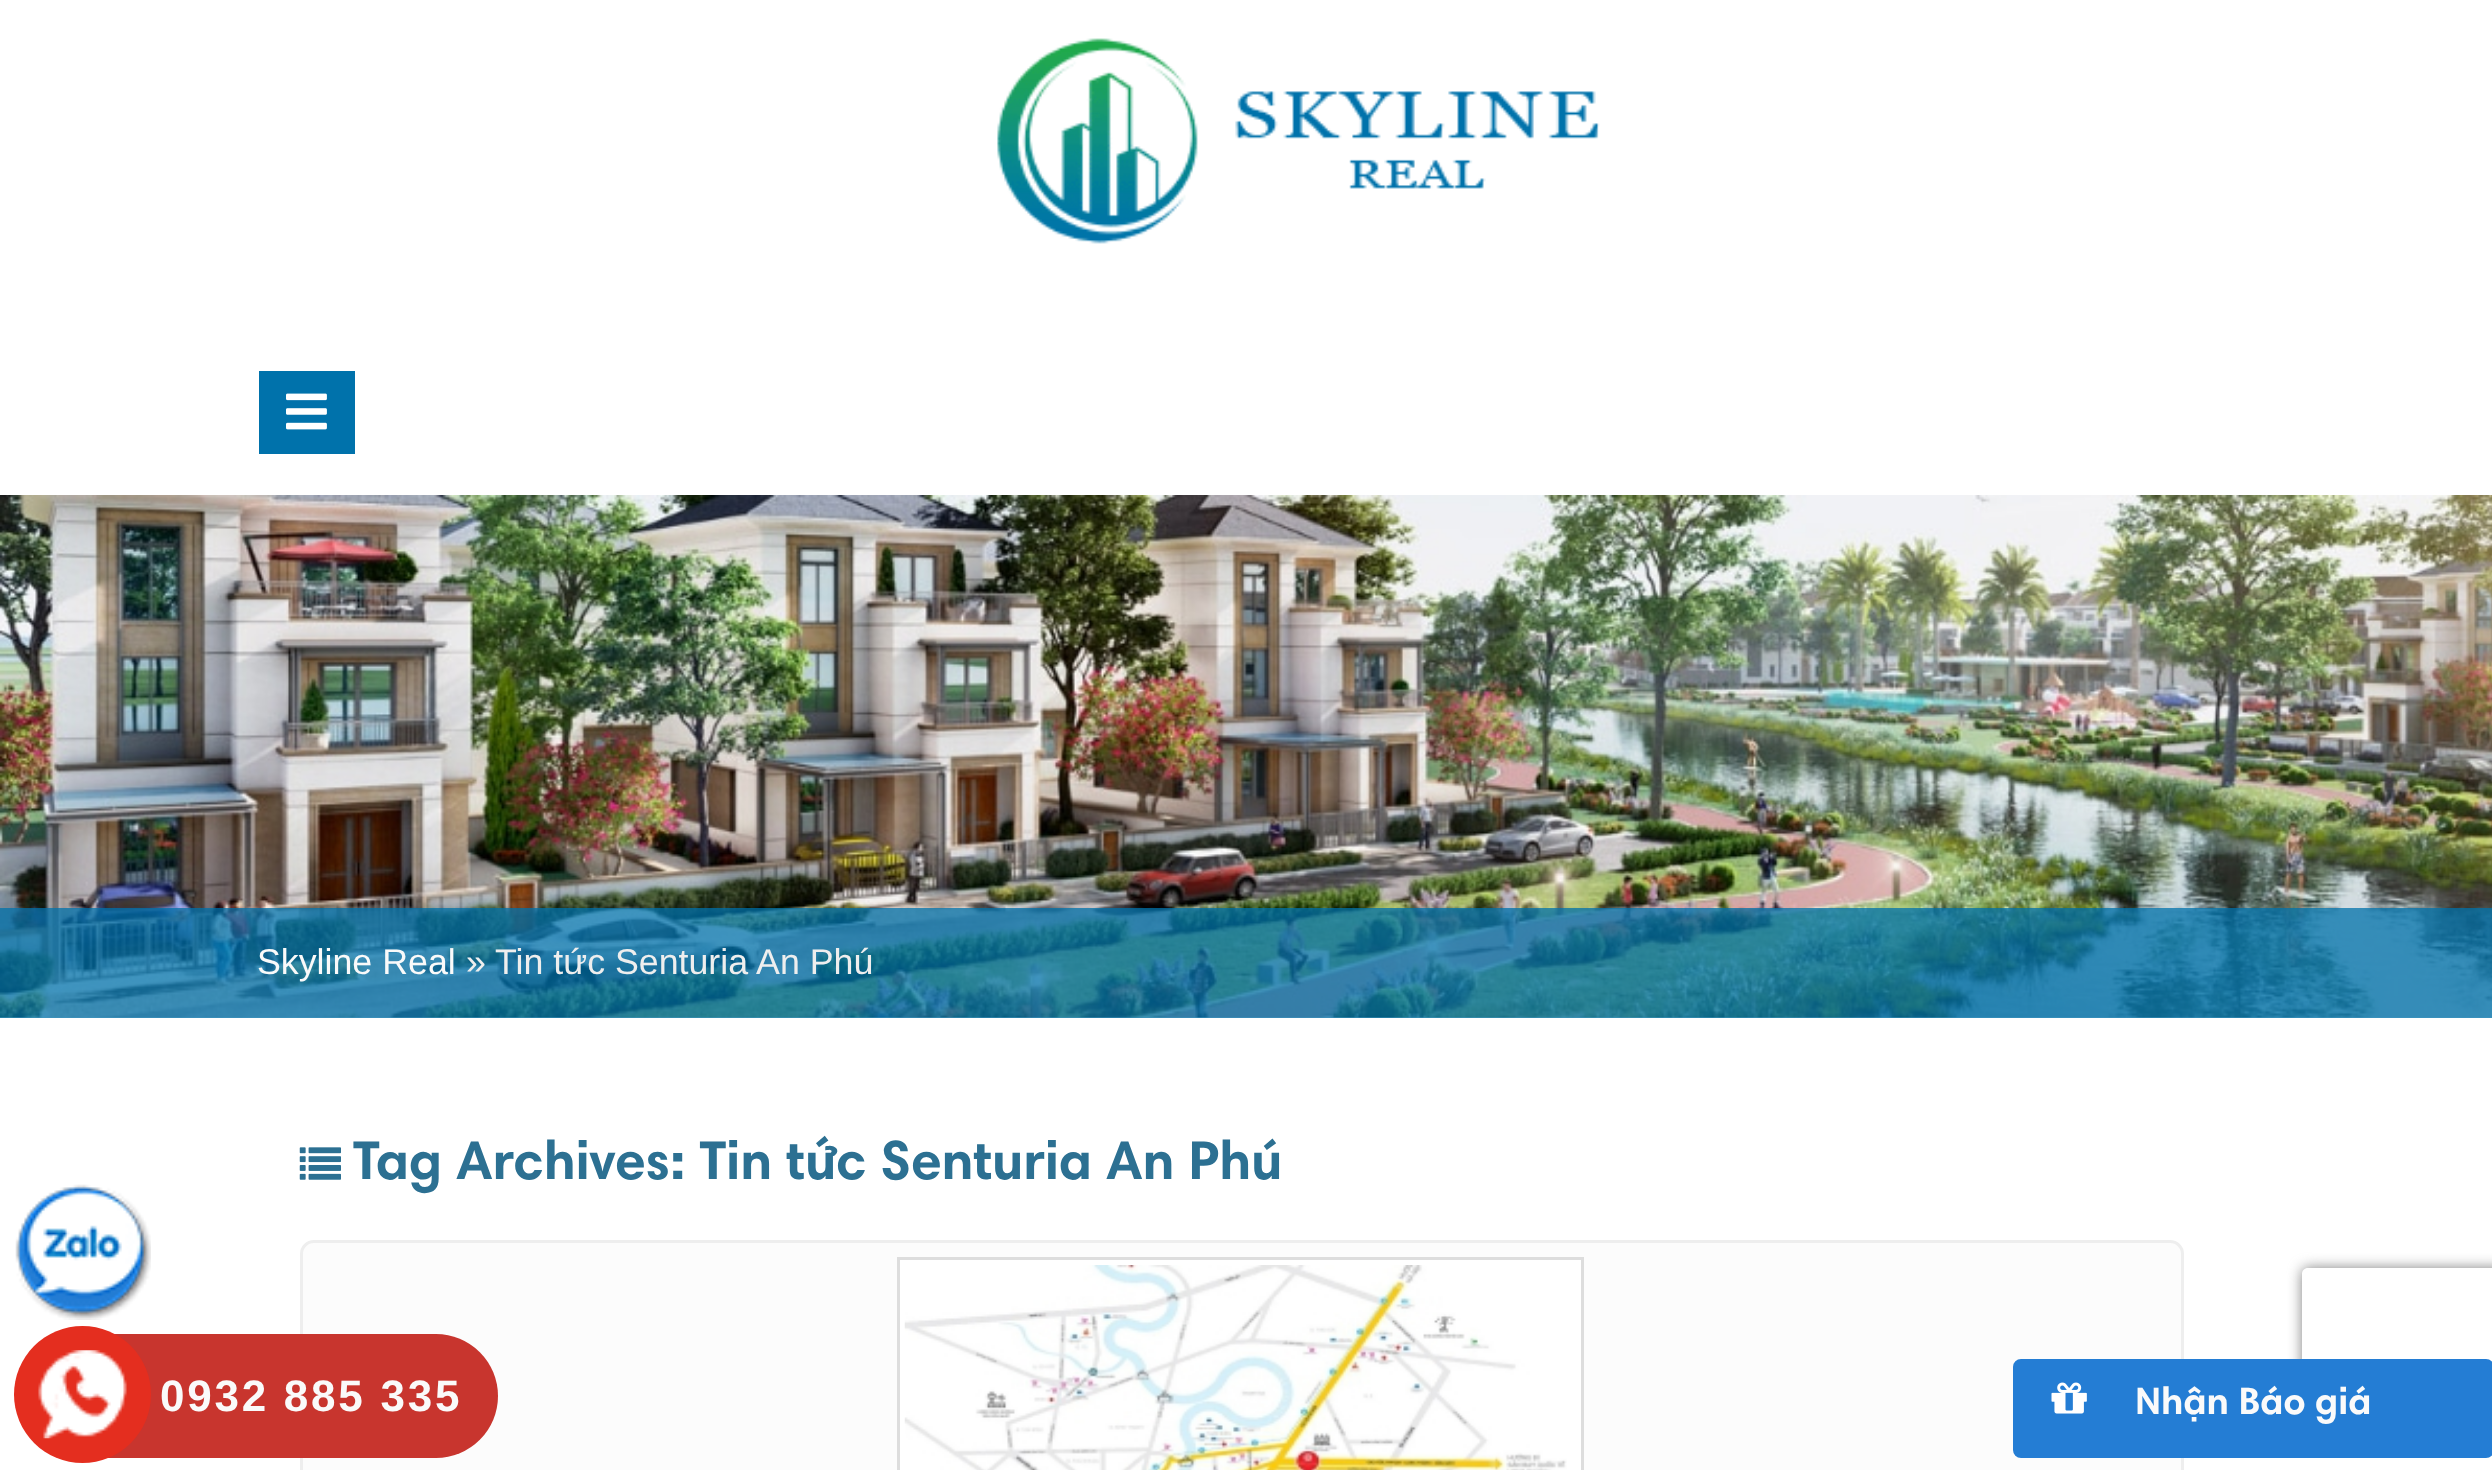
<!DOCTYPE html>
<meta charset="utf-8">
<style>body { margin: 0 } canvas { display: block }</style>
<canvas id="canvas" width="2492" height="1470"></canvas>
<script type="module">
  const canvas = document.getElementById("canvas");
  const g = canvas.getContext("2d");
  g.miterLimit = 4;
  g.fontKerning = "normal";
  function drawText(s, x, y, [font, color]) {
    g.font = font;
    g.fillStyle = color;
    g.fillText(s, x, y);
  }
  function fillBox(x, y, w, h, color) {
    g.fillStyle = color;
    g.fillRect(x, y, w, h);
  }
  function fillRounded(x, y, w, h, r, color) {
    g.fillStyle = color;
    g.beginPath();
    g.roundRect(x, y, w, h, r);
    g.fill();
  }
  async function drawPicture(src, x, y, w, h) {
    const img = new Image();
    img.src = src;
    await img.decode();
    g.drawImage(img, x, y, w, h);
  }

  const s1 = ["35.75px Liberation Sans", "#FAFAFA"];
  const s2 = ["35.75px Liberation Sans", "#EEEEEE"];
  const s3 = ["bold 55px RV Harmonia", "#2C7092"];
  const s4 = ["bold 44px Liberation Sans", "#FAFAFA"];
  const s5 = ["bold 38.5px RV Harmonia", "#FAFAFA"];

  fillBox(0, 0, 2492, 1470, "#FFFFFF");
  await drawPicture("pic1.png", 997, 38, 603, 206);
  fillBox(259, 371, 96, 83, "#0072AB");
  await drawPicture("pic2.png", 286, 393, 41, 37);
  await drawPicture("pic3.png", 0, 495, 2492, 523);
  fillBox(0, 908, 2492, 110, "rgba(0, 114, 171, 0.75)");
  drawText("Skyline Real", 257, 974, s1);
  drawText("»", 466, 974, s2);
  drawText("Tin tức Senturia An Phú", 495, 974, s2);
  await drawPicture("pic4.png", 299, 1147, 42, 33);
  drawText("Tag Archives: Tin tức Senturia An Phú", 353, 1179, s3);
  g.fillStyle = "#FCFCFC";
  g.beginPath();
  g.roundRect(301.5, 1241.5, 1881, 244, 12.5);
  g.fill();
  g.strokeStyle = "#EEEEEE";
  g.lineWidth = 3;
  g.stroke();
  g.fillStyle = "#FFFFFF";
  g.beginPath();
  g.rect(898.5, 1258.5, 684, 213);
  g.fill();
  g.strokeStyle = "#DDDDDD";
  g.stroke();
  await drawPicture("pic5.png", 904, 1265, 663, 205);
  await drawPicture("pic6.png", 15, 1184, 136, 136);
  fillRounded(44, 1334, 454, 124, 62, "#C8352E");
  g.fillStyle = "#E42E1F";
  g.beginPath();
  g.arc(82.5, 1394.5, 68.5, 0, Math.PI * 2);
  g.fill();
  await drawPicture("pic7.png", 38, 1350, 89, 89);
  g.letterSpacing = "2.75px";
  drawText("0932 885 335", 160, 1411, s4);
  g.save();
  g.beginPath();
  g.moveTo(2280, 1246);
  g.lineTo(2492, 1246);
  g.lineTo(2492, 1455);
  g.lineTo(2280, 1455);
  g.closePath();
  g.moveTo(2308, 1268);
  g.lineTo(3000, 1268);
  g.bezierCurveTo(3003.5, 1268, 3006, 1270.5, 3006, 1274);
  g.lineTo(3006, 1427);
  g.bezierCurveTo(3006, 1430.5, 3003.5, 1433, 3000, 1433);
  g.lineTo(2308, 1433);
  g.bezierCurveTo(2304.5, 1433, 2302, 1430.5, 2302, 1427);
  g.lineTo(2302, 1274);
  g.bezierCurveTo(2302, 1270.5, 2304.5, 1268, 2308, 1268);
  g.closePath();
  g.clip("evenodd");
  g.fillStyle = "#808080";
  g.filter = "blur(7px)";
  g.beginPath();
  g.roundRect(2302, 1268, 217, 165, 6);
  g.fill();
  g.filter = "none";
  g.restore();
  fillRounded(2013, 1359, 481, 99, 8, "#247DD4");
  await drawPicture("pic8.png", 2051, 1382, 36, 32);
  g.letterSpacing = "0px";
  drawText("Nhận Báo giá", 2135, 1414, s5);
</script>
